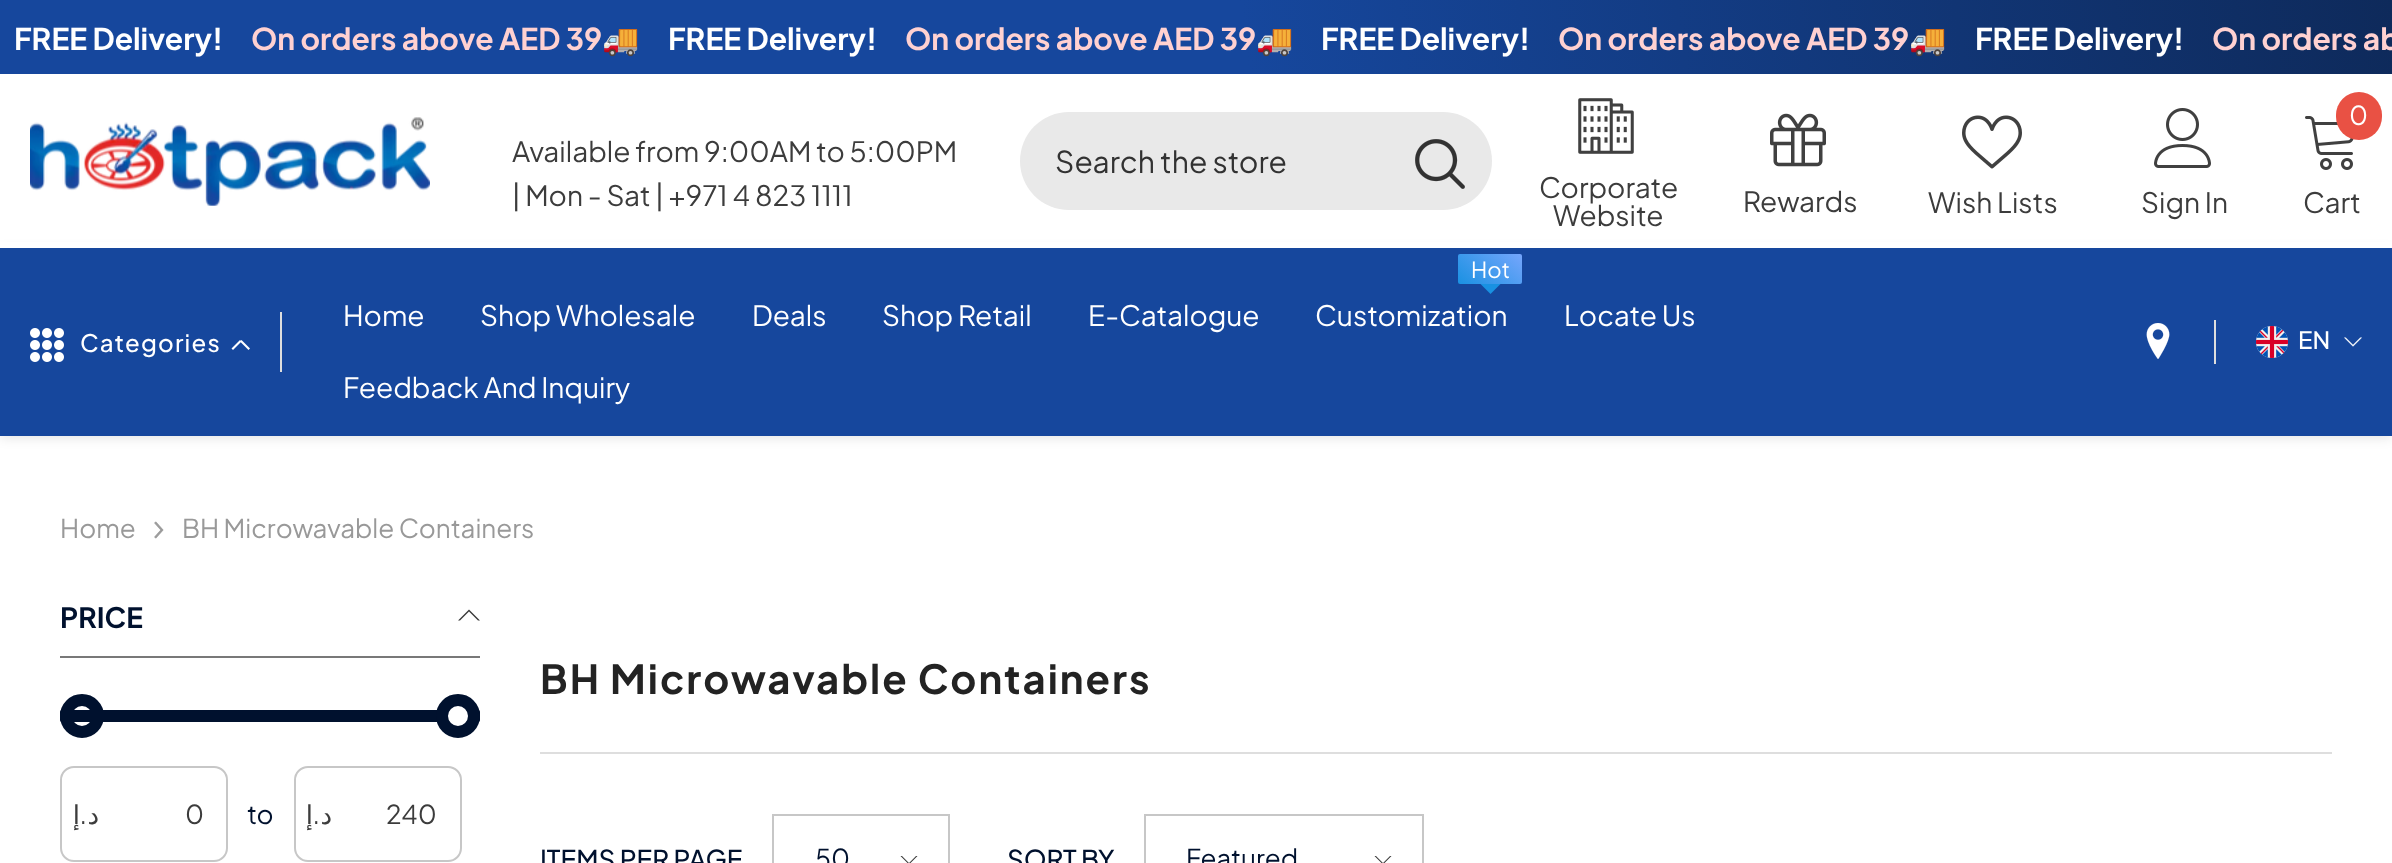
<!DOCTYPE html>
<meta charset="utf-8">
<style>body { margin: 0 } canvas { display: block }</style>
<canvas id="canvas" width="2392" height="863"></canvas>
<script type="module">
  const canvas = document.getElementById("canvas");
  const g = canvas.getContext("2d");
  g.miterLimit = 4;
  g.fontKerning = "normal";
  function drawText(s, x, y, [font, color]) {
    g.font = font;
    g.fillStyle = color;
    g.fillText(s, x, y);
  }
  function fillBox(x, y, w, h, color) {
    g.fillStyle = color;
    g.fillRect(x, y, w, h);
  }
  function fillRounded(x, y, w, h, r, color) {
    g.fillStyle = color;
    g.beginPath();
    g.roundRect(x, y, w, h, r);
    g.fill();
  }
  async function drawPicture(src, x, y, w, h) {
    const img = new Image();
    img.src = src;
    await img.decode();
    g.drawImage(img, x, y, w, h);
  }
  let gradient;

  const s1 = ["bold 30px Plus Jakarta Sans", "#FFFFFF"];
  const s2 = ["bold 30px Plus Jakarta Sans", "#FFD1D1"];
  const s3 = ["30px Noto Color Emoji", "#FFD1D1"];
  const s4 = ["28px Plus Jakarta Sans", "#3C3C3C"];
  const s5 = ["30px Plus Jakarta Sans", "#323232"];
  const s6 = ["26px Plus Jakarta Sans", "#FFFFFF"];
  const s7 = ["500 24px Plus Jakarta Sans", "#FFFFFF"];
  const s8 = ["28px Plus Jakarta Sans", "#FFFFFF"];
  const s9 = ["22px Plus Jakarta Sans", "#FFFFFF"];
  const s10 = ["26px Plus Jakarta Sans", "#999999"];
  const s11 = ["bold 28px Plus Jakarta Sans", "#00112E"];
  const s12 = ["26px DejaVu Sans", "#3C3C3C"];
  const s13 = ["26px Plus Jakarta Sans", "#3C3C3C"];
  const s14 = ["26px Plus Jakarta Sans", "#00112E"];
  const s15 = ["bold 40px Plus Jakarta Sans", "#232323"];
  const s16 = ["500 26px Plus Jakarta Sans", "#00112E"];

  fillBox(0, 0, 2392, 863, "#FFFFFF");
  gradient = g.createLinearGradient(13, 182, 2379, -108);
  gradient.addColorStop(0.52, "#16479D");
  gradient.addColorStop(1, "#0E2A5B");
  g.fillStyle = gradient;
  g.fillRect(0, 0, 2392, 74);
  drawText("FREE Delivery!", 14, 50, s1);
  drawText("On orders above AED 39", 251, 50, s2);
  drawText("🚚", 602, 50, s3);
  drawText("FREE Delivery!", 668, 50, s1);
  drawText("On orders above AED 39", 905, 50, s2);
  drawText("🚚", 1256, 50, s3);
  drawText("FREE Delivery!", 1321, 50, s1);
  drawText("On orders above AED 39", 1558, 50, s2);
  drawText("🚚", 1909, 50, s3);
  drawText("FREE Delivery!", 1975, 50, s1);
  drawText("On orders ab", 2212, 50, s2);
  g.fillStyle = "rgba(0, 0, 0, 0.1)";
  g.filter = "blur(6px)";
  g.beginPath();
  g.rect(0, 250, 2392, 188);
  g.fill();
  g.filter = "none";
  fillBox(0, 242, 2392, 6, "#FFFFFF");
  await drawPicture("pic1.png", 30, 117, 400, 89);
  drawText("Available from 9:00AM to 5:00PM", 512, 162, s4);
  drawText("| Mon - Sat | +971 4 823 1111", 512, 206, s4);
  fillRounded(1020, 112, 472, 98, 49, "#E9E9E9");
  drawText("Search the store", 1055, 173, s5);
  await drawPicture("pic2.png", 1415, 139, 50, 50);
  await drawPicture("pic3.png", 2305, 116, 49, 54);
  fillRounded(2336, 92, 46, 48, 23, "#E95144");
  drawText("0", 2349, 125, s6);
  drawText("Cart", 2303, 213, s4);
  await drawPicture("pic4.png", 1578, 98, 56, 56);
  drawText("Corporate", 1539, 198, s4);
  drawText("Website", 1553, 226, s4);
  await drawPicture("pic5.png", 1770, 113, 56, 54);
  drawText("Rewards", 1743, 212, s4);
  await drawPicture("pic6.png", 1962, 115, 60, 54);
  drawText("Wish Lists", 1928, 213, s4);
  await drawPicture("pic7.png", 2154, 108, 57, 60);
  drawText("Sign In", 2141, 213, s4);
  fillBox(0, 248, 2392, 188, "#16479D");
  await drawPicture("pic8.png", 30, 328, 34, 34);
  g.letterSpacing = "1.25px";
  drawText("Categories", 80, 352, s7);
  g.beginPath();
  g.moveTo(231.5, 348.5);
  g.lineTo(240, 340);
  g.lineTo(241.5, 341.5);
  g.lineTo(233, 350);
  g.closePath();
  g.fill();
  g.beginPath();
  g.moveTo(248.5, 350);
  g.lineTo(240, 341.5);
  g.lineTo(241.5, 340);
  g.lineTo(250, 348.5);
  g.closePath();
  g.fill();
  fillBox(280, 312, 2, 60, "#DEDEDE");
  g.letterSpacing = "0px";
  drawText("Home", 343, 326, s8);
  drawText("Shop Wholesale", 480, 326, s8);
  drawText("Deals", 752, 326, s8);
  drawText("Shop Retail", 882, 326, s8);
  drawText("E-Catalogue", 1088, 326, s8);
  gradient = g.createLinearGradient(1511, 244, 1469, 294);
  gradient.addColorStop(0, "#76A6FC");
  gradient.addColorStop(1, "#1991E2");
  g.fillStyle = gradient;
  g.beginPath();
  g.roundRect(1458, 254, 64, 30, 2);
  g.fill();
  drawText("Hot", 1471, 278, s9);
  g.fillStyle = "#1991E2";
  g.beginPath();
  g.moveTo(1480.5, 284);
  g.lineTo(1500.5, 284);
  g.lineTo(1490.5, 294);
  g.closePath();
  g.fill();
  drawText("Customization", 1315, 326, s8);
  drawText("Locate Us", 1564, 326, s8);
  drawText("Feedback And Inquiry", 343, 398, s8);
  await drawPicture("pic9.png", 2146, 323, 24, 36);
  fillBox(2214, 320, 2, 44, "#DEDEDE");
  await drawPicture("pic10.png", 2256, 326, 32, 32);
  drawText("EN", 2298, 349, s7);
  await drawPicture("pic11.png", 2344, 337, 18, 10);
  drawText("Home", 60, 538, s10);
  await drawPicture("pic12.png", 154, 521, 10, 18);
  drawText("BH Microwavable Containers", 182, 538, s10);
  fillBox(60, 656, 420, 2, "#787878");
  drawText("PRICE", 60, 628, s11);
  g.fillStyle = "#3C3C3C";
  g.beginPath();
  g.moveTo(469, 611.5);
  g.lineTo(478, 620.5);
  g.lineTo(480, 620.5);
  g.lineTo(469, 609.5);
  g.lineTo(458, 620.5);
  g.lineTo(460, 620.5);
  g.closePath();
  g.fill();
  g.beginPath();
  g.arc(82, 716, 16, 0, Math.PI * 2);
  g.strokeStyle = "#00112E";
  g.lineWidth = 12;
  g.stroke();
  fillRounded(60, 710, 420, 12, 2, "#00112E");
  g.fillStyle = "#FFFFFF";
  g.beginPath();
  g.arc(458, 716, 16, 0, Math.PI * 2);
  g.fill();
  g.stroke();
  g.beginPath();
  g.roundRect(61, 767, 166, 94, 13);
  g.strokeStyle = "#C7C7C7";
  g.lineWidth = 2;
  g.stroke();
  g.direction = "rtl";
  drawText("إ", 80, 824, s12);
  drawText(".", 87, 824, s13);
  drawText("د", 99, 824, s12);
  g.direction = "ltr";
  drawText("0", 185, 824, s13);
  drawText("to", 247, 824, s14);
  g.beginPath();
  g.roundRect(295, 767, 166, 94, 13);
  g.stroke();
  g.direction = "rtl";
  drawText("إ", 313, 824, s12);
  drawText(".", 320, 824, s13);
  drawText("د", 332, 824, s12);
  g.direction = "ltr";
  drawText("240", 386, 824, s13);
  g.letterSpacing = "2px";
  drawText("BH Microwavable Containers", 540, 694, s15);
  fillBox(540, 752, 1792, 2, "#DEDEDE");
  g.letterSpacing = "0px";
  drawText("ITEMS PER PAGE", 540, 869, s16);
  g.strokeRect(773, 815, 176, 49);
  drawText("50", 815, 868, s14);
  g.save();
  g.beginPath();
  g.rect(900, 856, 18, 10);
  g.clip();
  g.fillStyle = "#3C3C3C";
  g.beginPath();
  g.moveTo(909, 863);
  g.lineTo(901.5, 855.5);
  g.lineTo(900, 855.5);
  g.lineTo(909, 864.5);
  g.lineTo(918, 855.5);
  g.lineTo(916.5, 855.5);
  g.closePath();
  g.fill();
  g.restore();
  drawText("SORT BY", 1007, 869, s16);
  g.strokeRect(1145, 815, 278, 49);
  drawText("Featured", 1186, 868, s14);
  g.save();
  g.beginPath();
  g.rect(1374, 856, 18, 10);
  g.clip();
  g.fillStyle = "#3C3C3C";
  g.beginPath();
  g.moveTo(1383, 863);
  g.lineTo(1375.5, 855.5);
  g.lineTo(1374, 855.5);
  g.lineTo(1383, 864.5);
  g.lineTo(1392, 855.5);
  g.lineTo(1390.5, 855.5);
  g.closePath();
  g.fill();
  g.restore();
</script>
